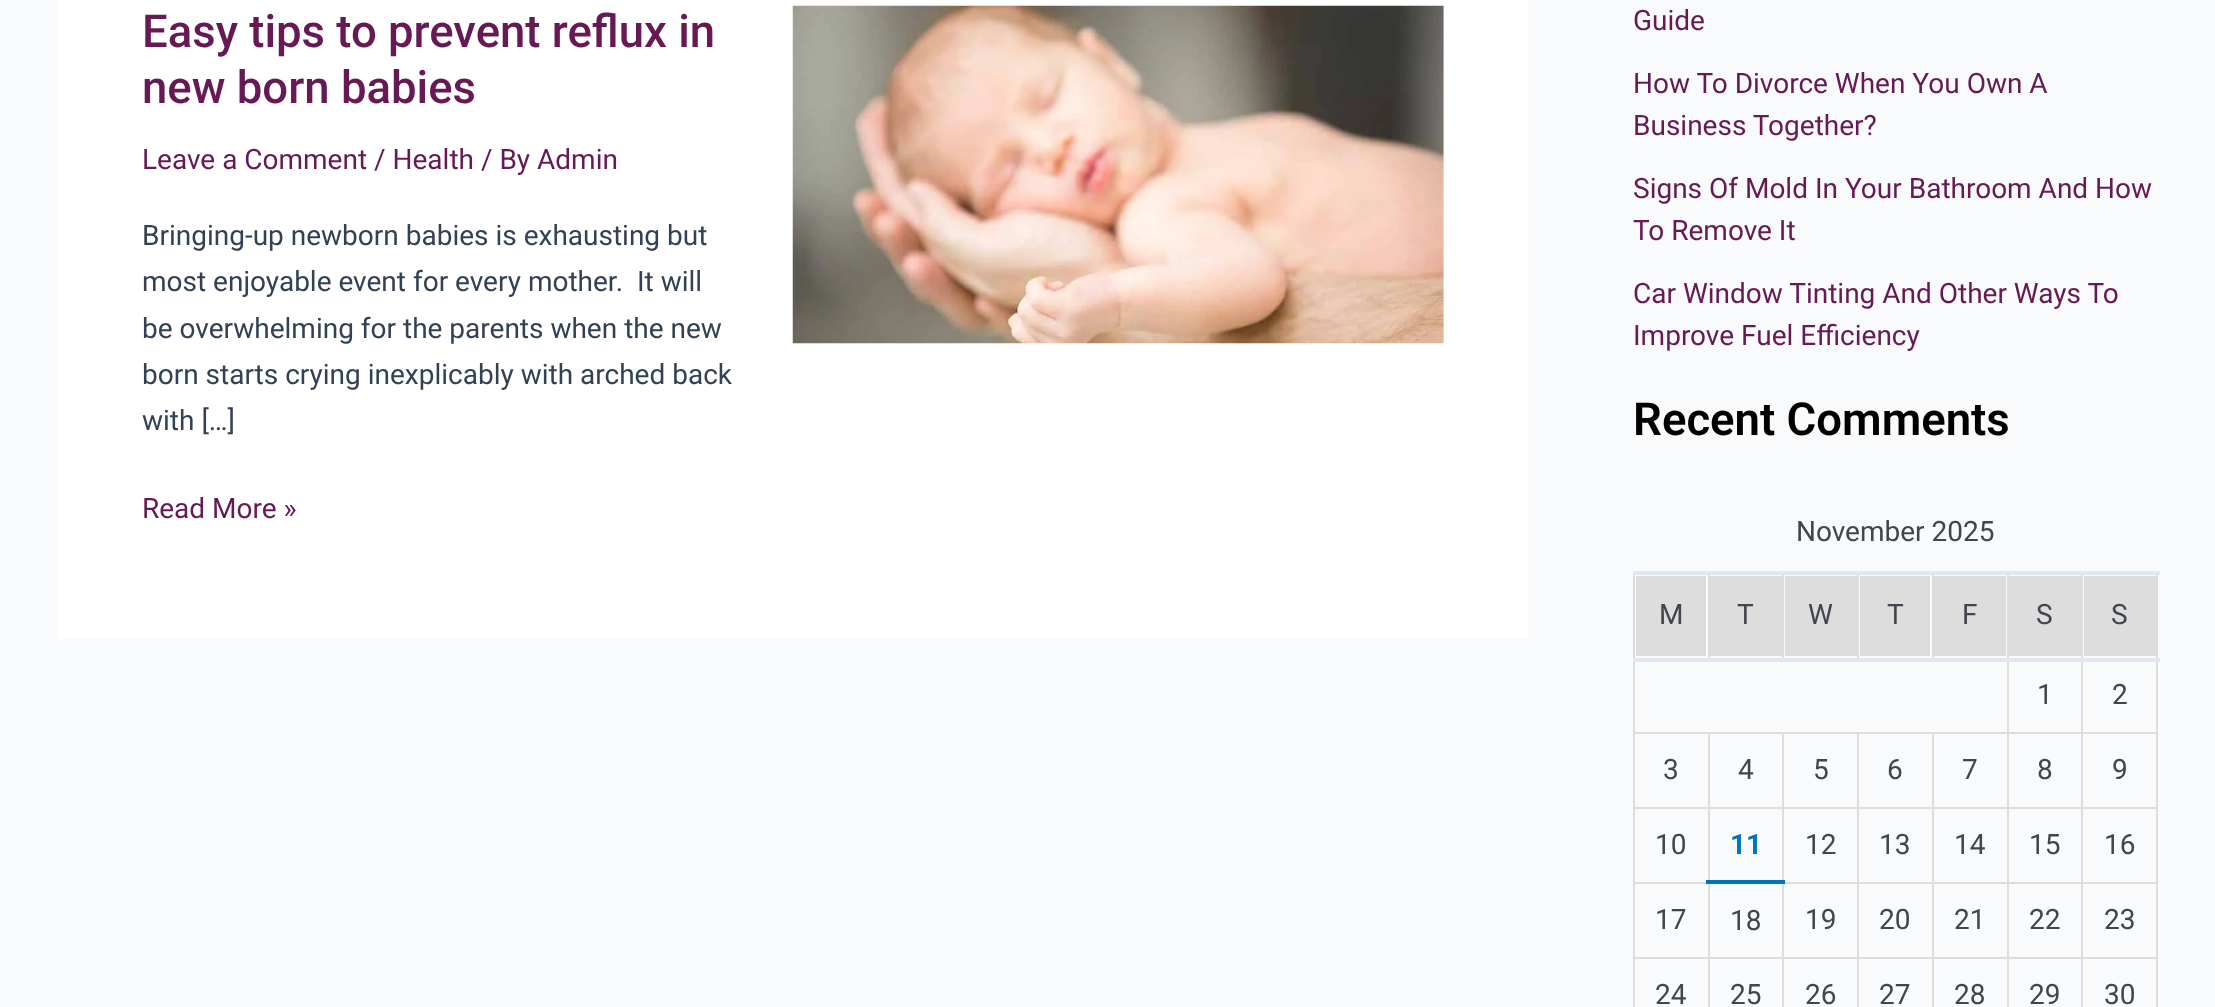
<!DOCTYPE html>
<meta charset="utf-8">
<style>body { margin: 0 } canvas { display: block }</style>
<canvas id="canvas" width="2215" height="1007"></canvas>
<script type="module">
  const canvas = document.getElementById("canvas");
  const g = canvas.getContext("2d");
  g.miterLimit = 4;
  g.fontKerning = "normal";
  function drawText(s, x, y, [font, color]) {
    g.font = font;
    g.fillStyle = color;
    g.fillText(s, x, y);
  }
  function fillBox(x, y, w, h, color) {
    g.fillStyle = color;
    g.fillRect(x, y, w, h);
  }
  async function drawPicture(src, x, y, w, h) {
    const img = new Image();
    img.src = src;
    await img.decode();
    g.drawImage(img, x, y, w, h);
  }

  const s1 = ["500 45.5px Roboto", "#661953"];
  const s2 = ["28px Roboto", "#661953"];
  const s3 = ["28px Roboto", "#334155"];
  const s4 = ["600 45.5px Roboto", "#000000"];
  const s5 = ["28px Roboto", "#40464D"];
  const s6 = ["bold 28px Roboto", "#0274BE"];

  fillBox(0, 0, 2215, 1007, "#F9FAFB");
  fillBox(58, 0, 1470, 639, "#FFFFFF");
  drawText("Easy tips to prevent reflux in", 142, 47, s1);
  drawText("new born babies", 142, 103, s1);
  drawText("Leave a Comment / Health / By Admin", 142, 169, s2);
  drawText("Bringing-up newborn babies is exhausting but", 142, 245, s3);
  drawText("most enjoyable event for every mother.  It will", 142, 291, s3);
  drawText("be overwhelming for the parents when the new", 142, 338, s3);
  drawText("born starts crying inexplicably with arched back", 142, 384, s3);
  drawText("with […]", 142, 430, s3);
  drawText("Read More »", 142, 518, s2);
  await drawPicture("pic1.png", 792, 5, 652, 339);
  drawText("Guide", 1633, 30, s2);
  drawText("How To Divorce When You Own A", 1633, 93, s2);
  drawText("Business Together?", 1633, 135, s2);
  drawText("Signs Of Mold In Your Bathroom And How", 1633, 198, s2);
  drawText("To Remove It", 1633, 240, s2);
  drawText("Car Window Tinting And Other Ways To", 1633, 303, s2);
  drawText("Improve Fuel Efficiency", 1633, 345, s2);
  drawText("Recent Comments", 1633, 435, s4);
  drawText("November 2025", 1796, 541, s5);
  fillBox(1636, 576, 70, 80, "#DDDDDD");
  drawText("M", 1659, 624, s5);
  fillBox(1710, 576, 72, 80, "#DDDDDD");
  fillBox(1708, 571, 2, 89, "#DDDDDD");
  drawText("T", 1737, 624, s5);
  fillBox(1785, 576, 72, 80, "#DDDDDD");
  fillBox(1782, 571, 2, 89, "#DDDDDD");
  drawText("W", 1808, 624, s5);
  fillBox(1860, 576, 70, 80, "#DDDDDD");
  fillBox(1857, 571, 2, 89, "#DDDDDD");
  drawText("T", 1887, 624, s5);
  fillBox(1934, 576, 72, 80, "#DDDDDD");
  fillBox(1932, 571, 2, 89, "#DDDDDD");
  drawText("F", 1962, 624, s5);
  fillBox(2009, 576, 72, 80, "#DDDDDD");
  drawText("S", 2036, 624, s5);
  fillBox(2084, 576, 72, 80, "#DDDDDD");
  fillBox(2081, 732, 77, 2, "#DDDDDD");
  fillBox(2081, 807, 77, 2, "#DDDDDD");
  fillBox(2081, 882, 77, 2, "#DDDDDD");
  fillBox(2081, 957, 77, 2, "#DDDDDD");
  fillBox(2081, 957, 2, 50, "#DDDDDD");
  fillBox(2007, 957, 76, 2, "#DDDDDD");
  fillBox(2081, 882, 2, 77, "#DDDDDD");
  fillBox(2007, 882, 76, 2, "#DDDDDD");
  fillBox(2081, 807, 2, 77, "#DDDDDD");
  fillBox(2007, 807, 76, 2, "#DDDDDD");
  fillBox(2081, 732, 2, 77, "#DDDDDD");
  fillBox(2007, 732, 76, 2, "#DDDDDD");
  fillBox(2007, 957, 2, 50, "#DDDDDD");
  fillBox(1932, 957, 77, 2, "#DDDDDD");
  fillBox(2007, 882, 2, 77, "#DDDDDD");
  fillBox(1932, 882, 77, 2, "#DDDDDD");
  fillBox(2007, 807, 2, 77, "#DDDDDD");
  fillBox(1932, 807, 77, 2, "#DDDDDD");
  fillBox(2007, 732, 2, 77, "#DDDDDD");
  fillBox(1932, 732, 77, 2, "#DDDDDD");
  fillBox(2007, 571, 2, 162, "#DDDDDD");
  fillBox(2081, 571, 2, 162, "#DDDDDD");
  fillBox(1932, 957, 2, 50, "#DDDDDD");
  fillBox(1857, 957, 77, 2, "#DDDDDD");
  fillBox(1932, 882, 2, 77, "#DDDDDD");
  fillBox(1857, 882, 77, 2, "#DDDDDD");
  fillBox(1932, 807, 2, 77, "#DDDDDD");
  fillBox(1857, 807, 77, 2, "#DDDDDD");
  fillBox(1932, 732, 2, 77, "#DDDDDD");
  fillBox(1857, 732, 77, 2, "#DDDDDD");
  fillBox(1857, 957, 2, 50, "#DDDDDD");
  fillBox(1782, 957, 77, 2, "#DDDDDD");
  fillBox(1857, 882, 2, 77, "#DDDDDD");
  fillBox(1782, 882, 77, 2, "#DDDDDD");
  fillBox(1857, 807, 2, 77, "#DDDDDD");
  fillBox(1782, 807, 77, 2, "#DDDDDD");
  fillBox(1857, 732, 2, 77, "#DDDDDD");
  fillBox(1782, 732, 77, 2, "#DDDDDD");
  fillBox(1782, 957, 2, 50, "#DDDDDD");
  fillBox(1708, 957, 75, 2, "#DDDDDD");
  fillBox(1782, 882, 2, 77, "#DDDDDD");
  fillBox(1782, 807, 2, 77, "#DDDDDD");
  fillBox(1708, 807, 75, 2, "#DDDDDD");
  fillBox(1782, 732, 2, 77, "#DDDDDD");
  fillBox(1708, 732, 75, 2, "#DDDDDD");
  fillBox(1708, 957, 2, 50, "#DDDDDD");
  fillBox(1633, 957, 77, 2, "#DDDDDD");
  fillBox(1708, 882, 2, 77, "#DDDDDD");
  fillBox(1633, 882, 77, 2, "#DDDDDD");
  fillBox(1708, 807, 2, 77, "#DDDDDD");
  fillBox(1633, 807, 77, 2, "#DDDDDD");
  fillBox(1708, 732, 2, 77, "#DDDDDD");
  fillBox(1633, 732, 77, 2, "#DDDDDD");
  fillBox(1633, 957, 2, 50, "#DDDDDD");
  fillBox(1633, 882, 2, 77, "#DDDDDD");
  fillBox(1633, 807, 2, 77, "#DDDDDD");
  fillBox(1633, 571, 2, 238, "#DDDDDD");
  fillBox(2156, 957, 2, 50, "#DDDDDD");
  fillBox(2156, 882, 2, 77, "#DDDDDD");
  fillBox(2156, 807, 2, 77, "#DDDDDD");
  fillBox(2156, 571, 2, 238, "#DDDDDD");
  fillBox(1633, 571, 527, 4, "#E2E8F0");
  fillBox(1633, 658, 527, 4, "#E2E8F0");
  drawText("S", 2111, 624, s5);
  drawText("1", 2037, 704, s5);
  drawText("2", 2112, 704, s5);
  drawText("3", 1663, 779, s5);
  drawText("4", 1738, 779, s5);
  drawText("5", 1813, 779, s5);
  drawText("6", 1887, 779, s5);
  drawText("7", 1962, 779, s5);
  drawText("8", 2037, 779, s5);
  drawText("9", 2112, 779, s5);
  drawText("10", 1655, 854, s5);
  fillBox(1706, 880, 79, 4, "#0274BE");
  drawText("11", 1730, 854, s6);
  drawText("12", 1805, 854, s5);
  drawText("13", 1879, 854, s5);
  drawText("14", 1954, 854, s5);
  drawText("15", 2029, 854, s5);
  drawText("16", 2104, 854, s5);
  drawText("17", 1655, 929, s5);
  drawText("18", 1730, 930, s5);
  drawText("19", 1805, 929, s5);
  drawText("20", 1879, 929, s5);
  drawText("21", 1954, 929, s5);
  drawText("22", 2029, 929, s5);
  drawText("23", 2104, 929, s5);
  drawText("24", 1655, 1004, s5);
  drawText("25", 1730, 1004, s5);
  drawText("26", 1805, 1004, s5);
  drawText("27", 1879, 1004, s5);
  drawText("28", 1954, 1004, s5);
  drawText("29", 2029, 1004, s5);
  drawText("30", 2104, 1004, s5);
</script>
